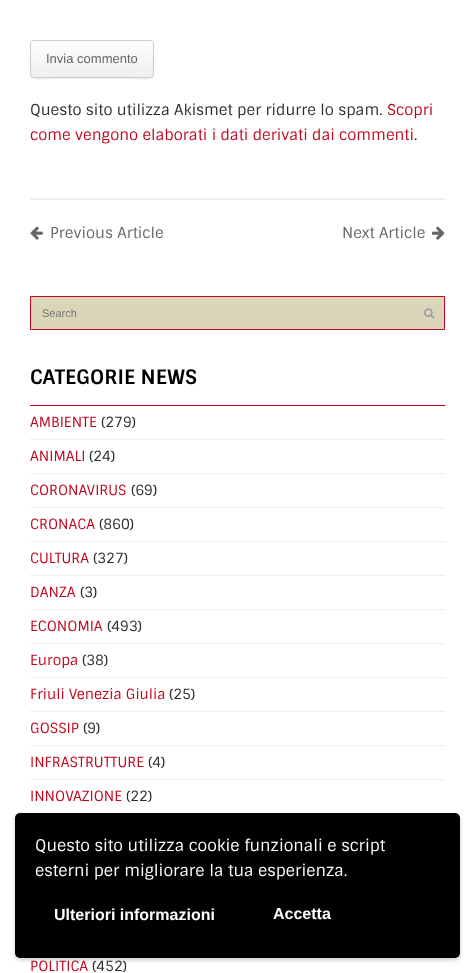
<!DOCTYPE html>
<meta charset="utf-8">
<style>body { margin: 0 } canvas { display: block }</style>
<canvas id="canvas" width="475" height="973"></canvas>
<script type="module">
  const canvas = document.getElementById("canvas");
  const g = canvas.getContext("2d");
  g.miterLimit = 4;
  g.fontKerning = "normal";
  function drawText(s, x, y, [font, color]) {
    g.font = font;
    g.fillStyle = color;
    g.fillText(s, x, y);
  }
  function fillBox(x, y, w, h, color) {
    g.fillStyle = color;
    g.fillRect(x, y, w, h);
  }
  function fillRounded(x, y, w, h, r, color) {
    g.fillStyle = color;
    g.beginPath();
    g.roundRect(x, y, w, h, r);
    g.fill();
  }
  async function drawPicture(src, x, y, w, h) {
    const img = new Image();
    img.src = src;
    await img.decode();
    g.drawImage(img, x, y, w, h);
  }
  let gradient;

  const s1 = ["13px Liberation Sans", "#666666"];
  const s2 = ["15px Sintony", "#2C2C2C"];
  const s3 = ["15px Sintony", "#C0061E"];
  const s4 = ["15px Sintony", "#666666"];
  const s5 = ["11px Liberation Sans", "#757575"];
  const s6 = ["bold 20px Sintony", "#000000"];
  const s7 = ["14px Sintony", "#C0061E"];
  const s8 = ["14px Sintony", "#2C2C2C"];
  const s9 = ["16px Sintony", "#FFFFFF"];
  const s10 = ["bold 16px Liberation Sans", "#FFFFFF"];

  fillBox(0, 0, 475, 973, "#FFFFFF");
  g.fillStyle = "#F2F2F2";
  g.beginPath();
  g.moveTo(30, 74);
  g.bezierCurveTo(30, 84, 51, 79, 53, 79);
  g.lineTo(131, 79);
  g.bezierCurveTo(133, 79, 154, 84, 154, 74);
  g.bezierCurveTo(154, 76, 152, 78, 150, 78);
  g.lineTo(34, 78);
  g.bezierCurveTo(32, 78, 30, 76, 30, 74);
  g.closePath();
  g.fill();
  g.save();
  g.beginPath();
  g.roundRect(30, 40, 124, 38, 4);
  g.clip();
  gradient = g.createLinearGradient(92, 41, 92, 77);
  gradient.addColorStop(0, "#FFFFFF");
  gradient.addColorStop(1, "#EFEFEF");
  g.fillStyle = gradient;
  g.fillRect(30, 41, 124, 36);
  g.restore();
  g.beginPath();
  g.roundRect(30.5, 40.5, 123, 37, 3.5);
  g.strokeStyle = "#CCCCCC";
  g.stroke();
  drawText("Invia commento", 46, 63, s1);
  drawText("Questo sito utilizza Akismet per ridurre lo spam.", 30, 115, s2);
  drawText("Scopri", 387, 115, s3);
  drawText("come vengono elaborati i dati derivati dai commenti", 30, 140, s3);
  drawText(".", 414, 140, s2);
  fillBox(30, 198, 415, 2, "#EEEEEE");
  await drawPicture("pic1.png", 30, 226, 13, 14);
  drawText("Previous Article", 50, 238, s4);
  drawText("Next Article", 342, 238, s4);
  await drawPicture("pic2.png", 432, 226, 13, 14);
  g.fillStyle = "#DBD6BA";
  g.beginPath();
  g.rect(30.5, 296.5, 414, 33);
  g.fill();
  g.strokeStyle = "#C0061E";
  g.stroke();
  drawText("Search", 42, 317, s5);
  await drawPicture("pic3.png", 424, 308, 11, 11);
  drawText("CATEGORIE NEWS", 30, 384, s6);
  fillBox(30, 405, 415, 1, "#C0061E");
  fillBox(30, 439, 415, 1, "#EEEEEE");
  drawText("AMBIENTE", 30, 427, s7);
  drawText("(279)", 101, 427, s8);
  fillBox(30, 473, 415, 1, "#EEEEEE");
  drawText("ANIMALI", 30, 461, s7);
  drawText("(24)", 89, 461, s8);
  fillBox(30, 507, 415, 1, "#EEEEEE");
  drawText("CORONAVIRUS", 30, 495, s7);
  drawText("(69)", 131, 495, s8);
  fillBox(30, 541, 415, 1, "#EEEEEE");
  drawText("CRONACA", 30, 529, s7);
  drawText("(860)", 99, 529, s8);
  fillBox(30, 575, 415, 1, "#EEEEEE");
  drawText("CULTURA", 30, 563, s7);
  drawText("(327)", 93, 563, s8);
  fillBox(30, 609, 415, 1, "#EEEEEE");
  drawText("DANZA", 30, 597, s7);
  drawText("(3)", 80, 597, s8);
  fillBox(30, 643, 415, 1, "#EEEEEE");
  drawText("ECONOMIA", 30, 631, s7);
  drawText("(493)", 107, 631, s8);
  fillBox(30, 677, 415, 1, "#EEEEEE");
  drawText("Europa", 30, 665, s7);
  drawText("(38)", 82, 665, s8);
  fillBox(30, 711, 415, 1, "#EEEEEE");
  drawText("Friuli Venezia Giulia", 30, 699, s7);
  drawText("(25)", 169, 699, s8);
  fillBox(30, 745, 415, 1, "#EEEEEE");
  drawText("GOSSIP", 30, 733, s7);
  drawText("(9)", 83, 733, s8);
  fillBox(30, 779, 415, 1, "#EEEEEE");
  drawText("INFRASTRUTTURE", 30, 767, s7);
  drawText("(4)", 148, 767, s8);
  drawText("INNOVAZIONE", 30, 801, s7);
  drawText("(22)", 126, 801, s8);
  drawText("POLITICA", 30, 971, s7);
  drawText("(452)", 92, 971, s8);
  g.fillStyle = "rgba(0, 0, 0, 0.2)";
  g.filter = "blur(2px)";
  g.beginPath();
  g.roundRect(15, 815, 445, 145, 5);
  g.fill();
  g.filter = "none";
  fillRounded(15, 813, 445, 145, 5, "#000000");
  drawText("Questo sito utilizza cookie funzionali e script", 35, 851, s9);
  drawText("esterni per migliorare la tua esperienza.", 35, 876, s9);
  drawText("Ulteriori informazioni", 54, 920, s10);
  drawText("Accetta", 273, 919, s10);
</script>
